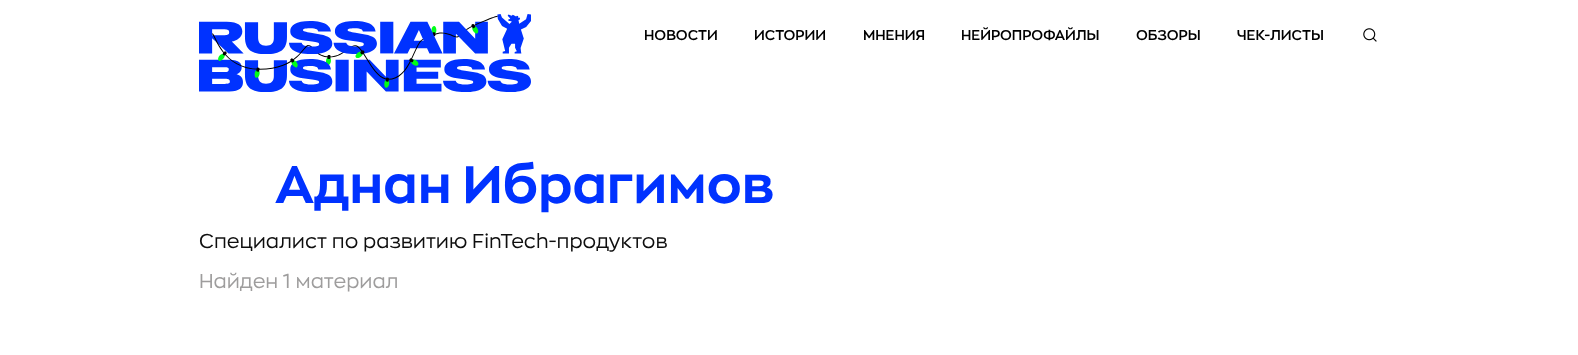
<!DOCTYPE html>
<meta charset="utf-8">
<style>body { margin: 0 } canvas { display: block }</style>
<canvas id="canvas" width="1578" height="355"></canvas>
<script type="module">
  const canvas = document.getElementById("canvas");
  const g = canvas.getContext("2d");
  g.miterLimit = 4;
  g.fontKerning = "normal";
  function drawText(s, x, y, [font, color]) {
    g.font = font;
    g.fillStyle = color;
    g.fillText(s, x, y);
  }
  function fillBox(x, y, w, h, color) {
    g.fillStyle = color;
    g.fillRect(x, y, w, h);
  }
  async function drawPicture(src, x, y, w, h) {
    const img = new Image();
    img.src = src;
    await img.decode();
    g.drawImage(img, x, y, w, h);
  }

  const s1 = ["600 14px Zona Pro", "#000000"];
  const s2 = ["bold 52px Zona Pro", "#0032FF"];
  const s3 = ["20px Zona Pro", "#0E0E0E"];
  const s4 = ["20px Zona Pro", "#9E9D9D"];

  fillBox(0, 0, 1578, 355, "#FFFFFF");
  await drawPicture("pic1.png", 199, 14, 332, 78);
  drawText("НОВОСТИ", 644, 40, s1);
  drawText("ИСТОРИИ", 754, 40, s1);
  drawText("МНЕНИЯ", 863, 40, s1);
  drawText("НЕЙРОПРОФАЙЛЫ", 961, 40, s1);
  drawText("ОБЗОРЫ", 1136, 40, s1);
  drawText("ЧЕК-ЛИСТЫ", 1237, 40, s1);
  await drawPicture("pic2.png", 1363, 28, 14, 14);
  drawText("Аднан Ибрагимов", 275, 203, s2);
  drawText("Специалист по развитию FinTech-продуктов", 199, 248, s3);
  drawText("Найден 1 материал", 199, 288, s4);
</script>
